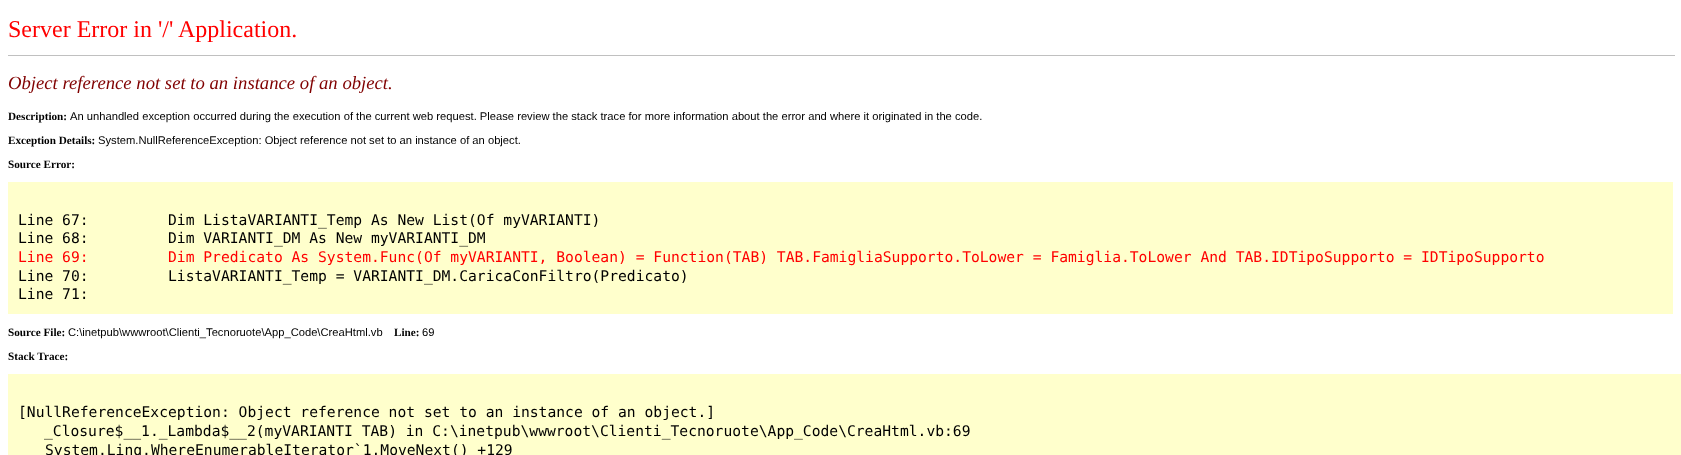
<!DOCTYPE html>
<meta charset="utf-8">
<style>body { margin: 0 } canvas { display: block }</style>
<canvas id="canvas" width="1681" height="455"></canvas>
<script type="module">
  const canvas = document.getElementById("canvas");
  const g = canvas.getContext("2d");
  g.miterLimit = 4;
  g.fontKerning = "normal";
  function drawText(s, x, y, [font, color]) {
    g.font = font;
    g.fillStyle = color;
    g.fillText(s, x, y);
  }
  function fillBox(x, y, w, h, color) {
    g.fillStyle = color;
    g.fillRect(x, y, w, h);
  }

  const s1 = ["24px Liberation Serif", "#FF0000"];
  const s2 = ["italic 18.7px Liberation Serif", "#800000"];
  const s3 = ["bold 11.2px Liberation Serif", "#000000"];
  const s4 = ["11.2px Liberation Sans", "#000000"];
  const s5 = ["14.67px DejaVu Sans Mono", "#000000"];
  const s6 = ["14.67px DejaVu Sans Mono", "#FF0000"];

  fillBox(0, 0, 1681, 455, "#FFFFFF");
  drawText("Server Error in '/' Application.", 8, 37, s1);
  fillBox(8, 55, 1667, 1, "#C0C0C0");
  drawText("Object reference not set to an instance of an object.", 8, 89, s2);
  drawText("Description:", 8, 120, s3);
  drawText("An unhandled exception occurred during the execution of the current web request. Please review the stack trace for more information about the error and where it originated in the code.", 70, 120, s4);
  drawText("Exception Details:", 8, 144, s3);
  drawText("System.NullReferenceException: Object reference not set to an instance of an object.", 98, 144, s4);
  drawText("Source Error:", 8, 168, s3);
  fillBox(8, 182, 1665, 132, "#FFFFCC");
  drawText("Line 67:         Dim ListaVARIANTI_Temp As New List(Of myVARIANTI)", 18, 225, s5);
  drawText("Line 68:         Dim VARIANTI_DM As New myVARIANTI_DM", 18, 243, s5);
  drawText("Line 69:         Dim Predicato As System.Func(Of myVARIANTI, Boolean) = Function(TAB) TAB.FamigliaSupporto.ToLower = Famiglia.ToLower And TAB.IDTipoSupporto = IDTipoSupporto", 18, 262, s6);
  drawText("Line 70:         ListaVARIANTI_Temp = VARIANTI_DM.CaricaConFiltro(Predicato)", 18, 281, s5);
  drawText("Line 71:", 18, 299, s5);
  drawText("Source File:", 8, 336, s3);
  drawText("C:\\inetpub\\wwwroot\\Clienti_Tecnoruote\\App_Code\\CreaHtml.vb", 68, 336, s4);
  drawText("Line:", 394, 336, s3);
  drawText("69", 422, 336, s4);
  drawText("Stack Trace:", 8, 360, s3);
  fillBox(8, 374, 1673, 81, "#FFFFCC");
  drawText("[NullReferenceException: Object reference not set to an instance of an object.]", 18, 417, s5);
  drawText("_Closure$__1._Lambda$__2(myVARIANTI TAB) in C:\\inetpub\\wwwroot\\Clienti_Tecnoruote\\App_Code\\CreaHtml.vb:69", 44, 436, s5);
  drawText("System.Linq.WhereEnumerableIterator`1.MoveNext() +129", 45, 455, s5);
</script>
